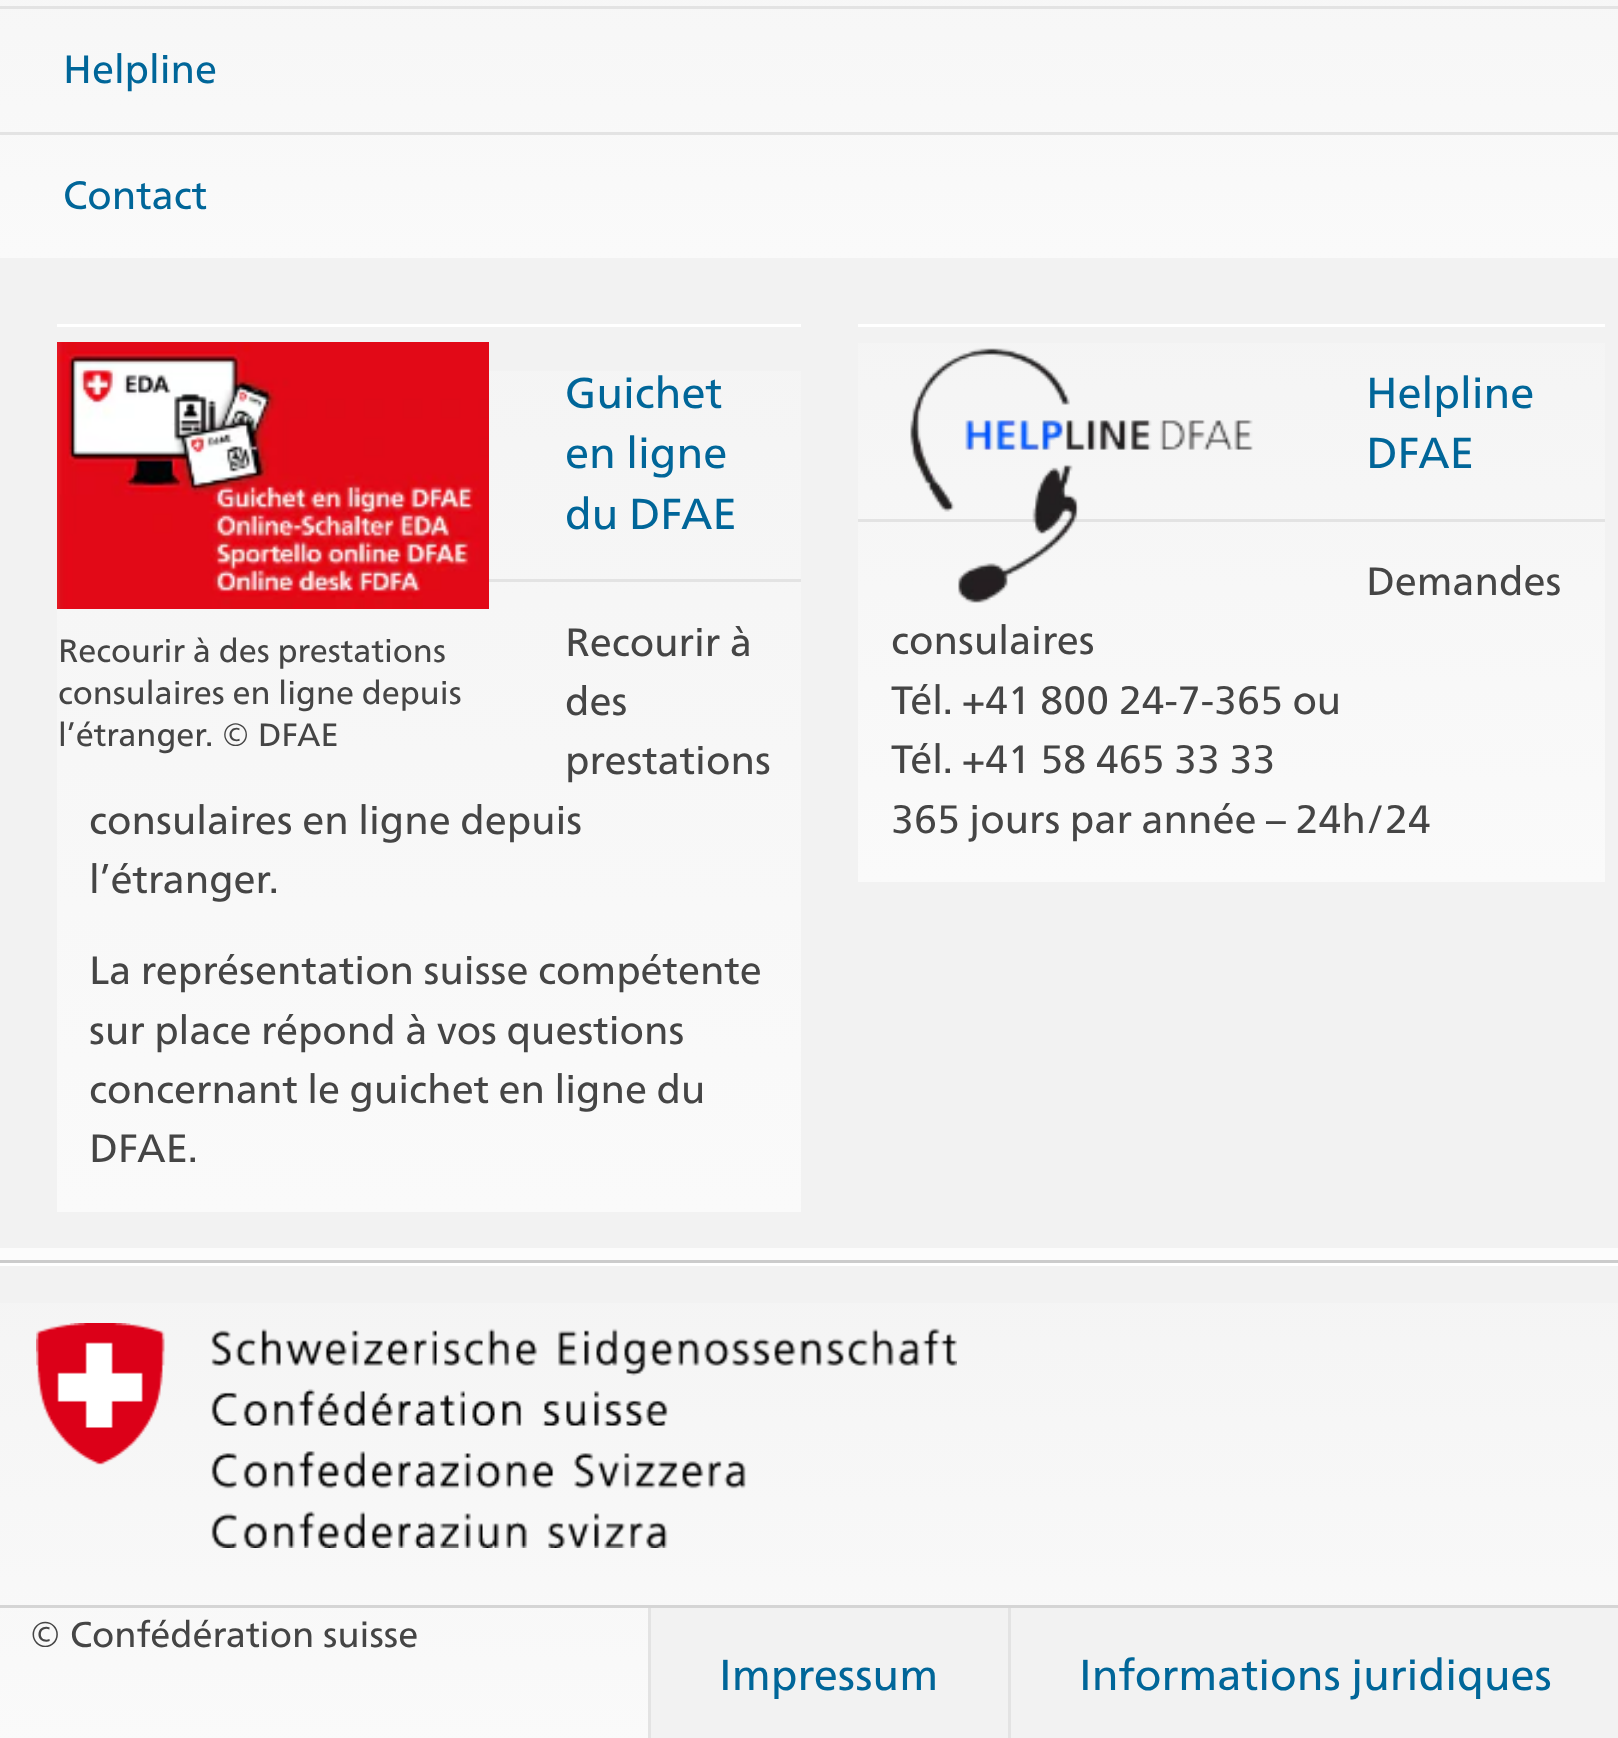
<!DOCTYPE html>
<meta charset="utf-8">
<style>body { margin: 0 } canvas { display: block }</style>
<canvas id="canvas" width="1618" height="1738"></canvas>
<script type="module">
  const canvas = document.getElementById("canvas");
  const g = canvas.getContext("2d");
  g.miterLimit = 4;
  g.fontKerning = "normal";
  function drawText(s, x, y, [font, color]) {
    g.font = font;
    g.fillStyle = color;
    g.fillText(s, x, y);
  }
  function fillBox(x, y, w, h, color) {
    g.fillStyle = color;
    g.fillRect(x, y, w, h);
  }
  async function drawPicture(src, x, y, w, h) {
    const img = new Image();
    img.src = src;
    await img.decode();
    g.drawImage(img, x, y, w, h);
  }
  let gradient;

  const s1 = ["39.6px 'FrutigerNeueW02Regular'", "#006699"];
  const s2 = ["43.25px 'FrutigerNeueW02Regular'", "#006699"];
  const s3 = ["39.6px 'FrutigerNeueW02Regular'", "#454545"];
  const s4 = ["32.4px 'FrutigerNeueW02Regular'", "#454545"];
  const s5 = ["36px 'FrutigerNeueW02Regular'", "#454545"];

  fillBox(0, 0, 1618, 1738, "#F2F2F2");
  gradient = g.createLinearGradient(810, -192, 810, 258);
  gradient.addColorStop(0, "#F4F4F4");
  gradient.addColorStop(1, "#FAFAFA");
  g.fillStyle = gradient;
  g.fillRect(0, 0, 1618, 258);
  fillBox(0, 6, 1618, 3, "#E3E3E3");
  drawText("Helpline", 63, 83, s1);
  fillBox(0, 132, 1618, 3, "#E3E3E3");
  drawText("Contact", 63, 209, s1);
  gradient = g.createLinearGradient(429, 294, 429, 1212);
  gradient.addColorStop(0, "#F4F4F4");
  gradient.addColorStop(1, "#FAFAFA");
  g.fillStyle = gradient;
  g.fillRect(57, 371, 744, 841);
  fillBox(57, 324, 744, 3, "#FFFFFF");
  fillBox(489, 579, 312, 3, "#E3E3E3");
  drawText("Guichet", 565, 408, s2);
  drawText("en ligne", 565, 468, s2);
  drawText("du DFAE", 565, 529, s2);
  drawText("Recourir à", 565, 656, s3);
  drawText("des", 565, 715, s3);
  drawText("prestations", 565, 774, s3);
  drawText("consulaires en ligne depuis", 89, 834, s3);
  drawText("l’étranger.", 89, 893, s3);
  await drawPicture("pic1.png", 57, 342, 432, 267);
  drawText("Recourir à des prestations", 58, 662, s4);
  drawText("consulaires en ligne depuis", 58, 704, s4);
  drawText("l’étranger. © DFAE", 58, 746, s4);
  drawText("La représentation suisse compétente", 89, 984, s3);
  drawText("sur place répond à vos questions", 89, 1044, s3);
  drawText("concernant le guichet en ligne du", 89, 1103, s3);
  drawText("DFAE.", 89, 1162, s3);
  gradient = g.createLinearGradient(1232, 294, 1232, 882);
  gradient.addColorStop(0, "#F4F4F4");
  gradient.addColorStop(1, "#FAFAFA");
  g.fillStyle = gradient;
  g.fillRect(858, 343, 747, 539);
  fillBox(858, 519, 747, 3, "#E3E3E3");
  await drawPicture("pic2.png", 910, 348, 343, 255);
  fillBox(858, 324, 747, 3, "#FFFFFF");
  drawText("Helpline", 1366, 408, s2);
  drawText("DFAE", 1366, 468, s2);
  drawText("Demandes", 1366, 595, s3);
  drawText("consulaires", 891, 654, s3);
  drawText("Tél. +41 800 24-7-365 ou", 891, 714, s3);
  drawText("Tél. +41 58 465 33 33", 891, 773, s3);
  drawText("365 jours par année – 24h/24", 891, 833, s3);
  fillBox(0, 1248, 1618, 12, "#FCFCFC");
  fillBox(0, 1260, 1618, 3, "#CCCCCC");
  gradient = g.createLinearGradient(810, 1263, 810, 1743);
  gradient.addColorStop(0, "#F4F4F4");
  gradient.addColorStop(1, "#FAFAFA");
  g.fillStyle = gradient;
  g.fillRect(0, 1303, 1618, 435);
  fillBox(0, 1263, 1618, 3, "#FFFFFF");
  fillBox(0, 1605, 1618, 3, "#D5D5D5");
  await drawPicture("pic3.png", 36, 1323, 921, 225);
  drawText("© Confédération suisse", 29, 1647, s5);
  fillBox(651, 1608, 357, 130, "#F2F2F2");
  fillBox(648, 1608, 3, 130, "#E3E3E3");
  drawText("Impressum", 719, 1690, s2);
  fillBox(1011, 1608, 607, 130, "#F2F2F2");
  fillBox(1008, 1608, 3, 130, "#E3E3E3");
  drawText("Informations juridiques", 1079, 1690, s2);
</script>
